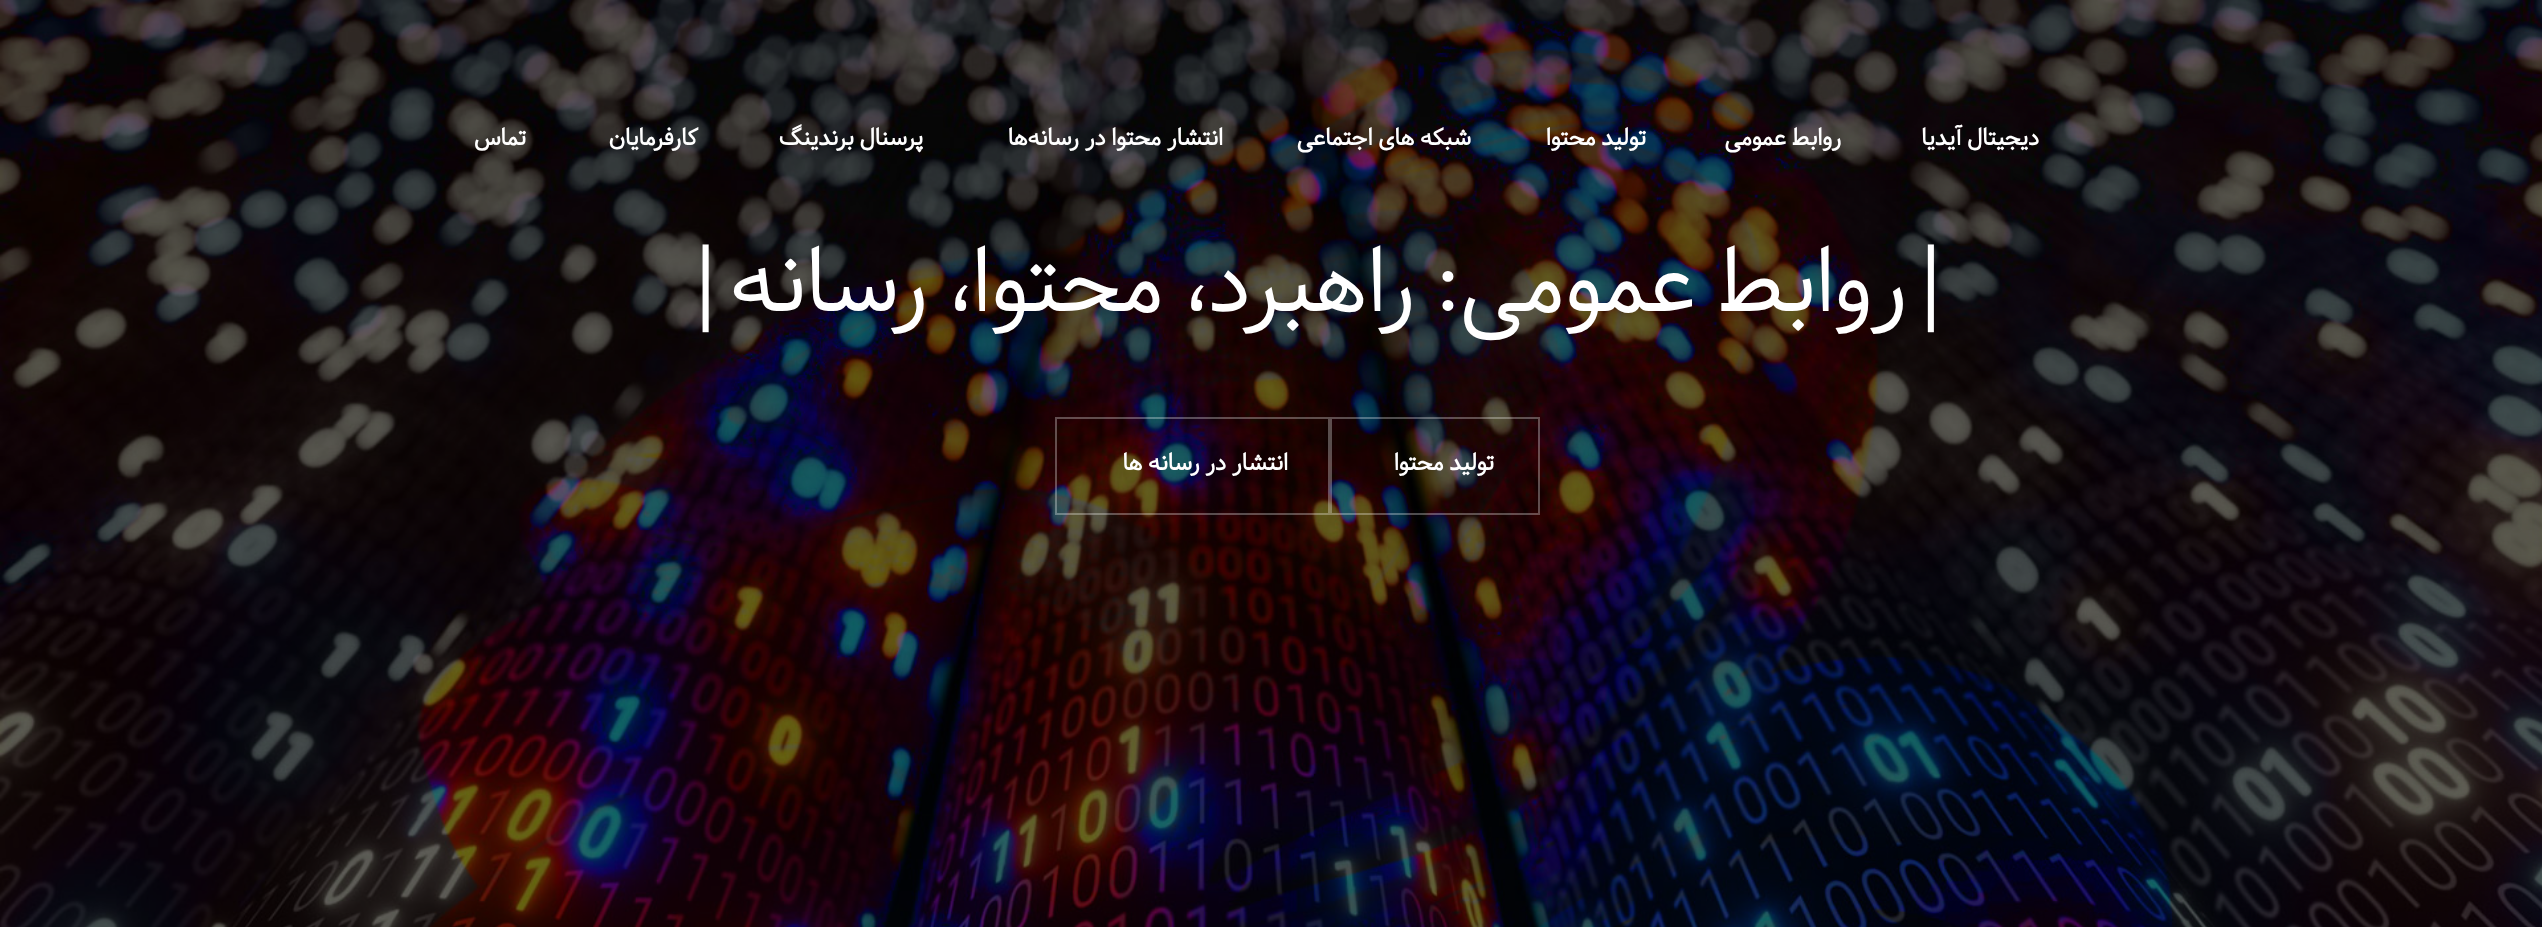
<!DOCTYPE html>
<meta charset="utf-8">
<style>body { margin: 0 } canvas { display: block }</style>
<canvas id="canvas" width="2542" height="927"></canvas>
<script type="module">
  const canvas = document.getElementById("canvas");
  const g = canvas.getContext("2d");
  g.miterLimit = 4;
  g.fontKerning = "normal";
  function drawText(s, x, y, [font, color]) {
    g.font = font;
    g.fillStyle = color;
    g.fillText(s, x, y);
  }
  function fillBox(x, y, w, h, color) {
    g.fillStyle = color;
    g.fillRect(x, y, w, h);
  }
  async function drawPicture(src, x, y, w, h) {
    const img = new Image();
    img.src = src;
    await img.decode();
    g.drawImage(img, x, y, w, h);
  }

  const s1 = ["bold 22.75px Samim", "#FFFFFF"];
  const s2 = ["87.5px Samim", "#FFFFFF"];

  fillBox(0, 0, 2542, 927, "#FFFFFF");
  await drawPicture("pic1.png", 0, 0, 2542, 927);
  g.letterSpacing = "0.9px";
  g.wordSpacing = "-1.5px";
  g.direction = "rtl";
  drawText("دیجیتال آیدیا", 2039, 145, s1);
  drawText("روابط عمومی", 1841, 145, s1);
  drawText("تولید محتوا", 1646, 145, s1);
  drawText("شبکه های اجتماعی", 1471, 145, s1);
  drawText("انتشار محتوا در رسانه‌ها", 1223, 145, s1);
  drawText("پرسنال برندینگ", 923, 145, s1);
  g.wordSpacing = "0px";
  drawText("کارفرمایان", 698, 145, s1);
  drawText("تماس", 526, 145, s1);
  g.letterSpacing = "1.75px";
  g.wordSpacing = "-5px";
  drawText("|روابط عمومی: راهبرد، محتوا، رسانه|", 1955, 311, s2);
  g.strokeStyle = "rgba(255, 255, 255, 0.3)";
  g.lineWidth = 2;
  g.strokeRect(1331, 418, 208, 96);
  g.letterSpacing = "0.9px";
  g.wordSpacing = "-1.5px";
  drawText("تولید محتوا", 1494, 470, s1);
  g.strokeRect(1056, 418, 273, 96);
  drawText("انتشار در رسانه ها", 1288, 470, s1);
</script>
